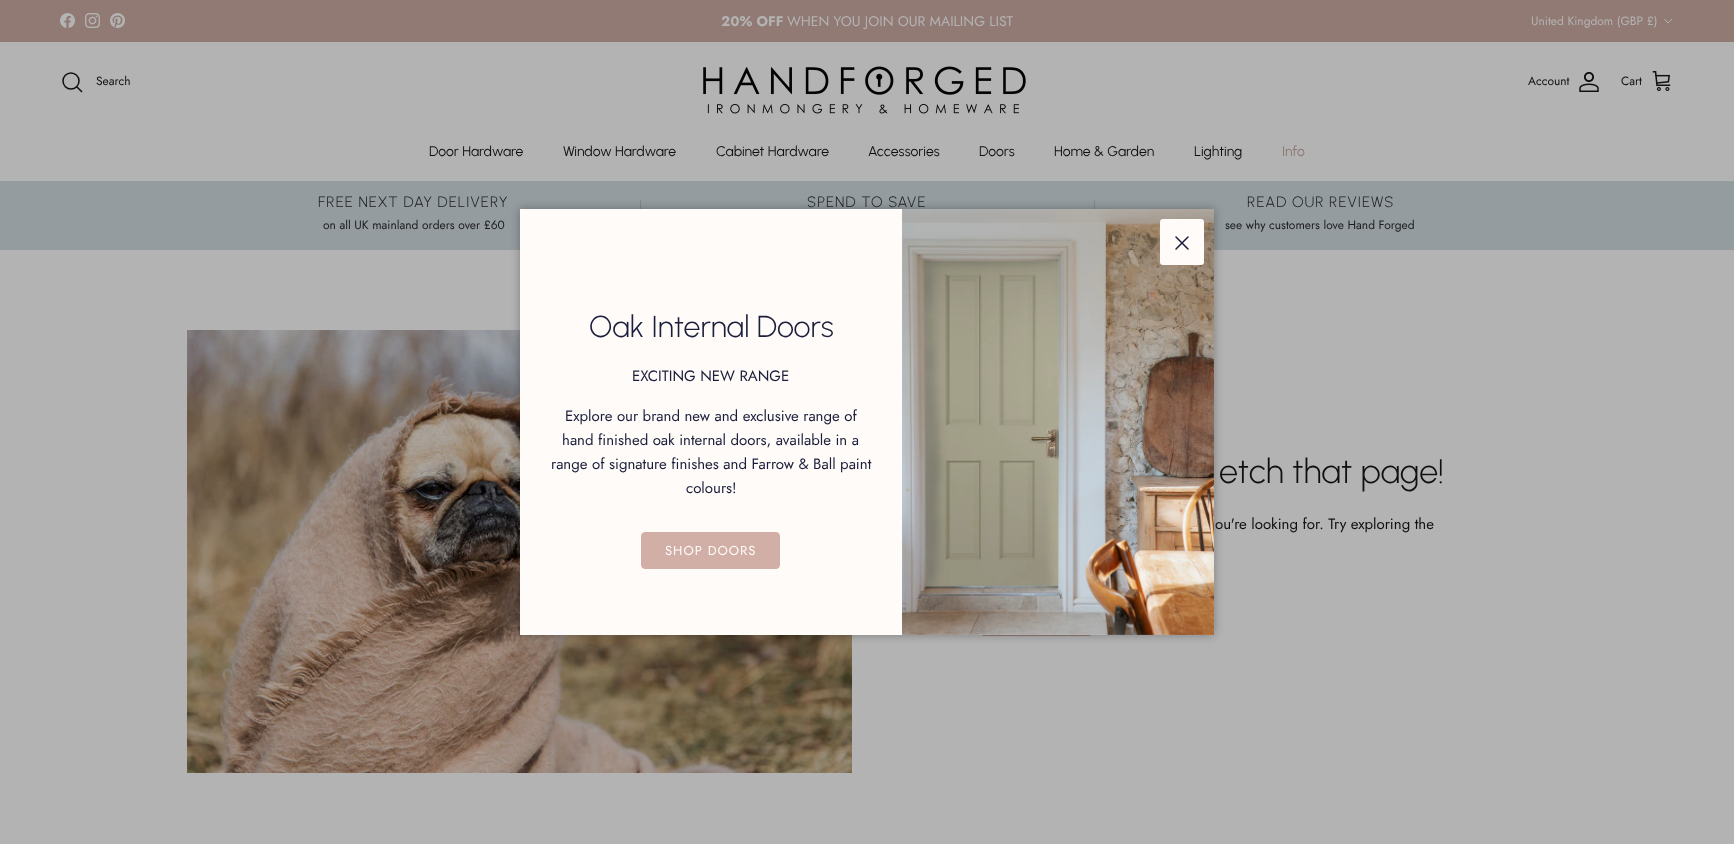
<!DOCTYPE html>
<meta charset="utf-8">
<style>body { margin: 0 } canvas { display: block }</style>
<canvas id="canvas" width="1734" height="844"></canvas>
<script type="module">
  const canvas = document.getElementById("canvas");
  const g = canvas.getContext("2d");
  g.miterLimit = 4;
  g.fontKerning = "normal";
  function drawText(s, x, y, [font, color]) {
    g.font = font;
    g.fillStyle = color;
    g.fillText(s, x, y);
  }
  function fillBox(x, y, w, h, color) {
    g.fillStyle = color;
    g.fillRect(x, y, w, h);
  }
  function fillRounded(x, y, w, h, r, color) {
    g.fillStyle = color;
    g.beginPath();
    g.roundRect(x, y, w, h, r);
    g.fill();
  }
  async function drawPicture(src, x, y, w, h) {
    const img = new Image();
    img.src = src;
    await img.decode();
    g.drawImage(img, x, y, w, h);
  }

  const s1 = ["bold 14px Jost", "#B3B3B3"];
  const s2 = ["14px Jost", "#B3B3B3"];
  const s3 = ["12px Jost", "#B3B3B3"];
  const s4 = ["12px Jost", "#101010"];
  const s5 = ["14px Urbanist", "#101010"];
  const s6 = ["14px Urbanist", "#8B7872"];
  const s7 = ["300 15px Urbanist", "#1B1B1B"];
  const s8 = ["12px Jost", "#1B1B1B"];
  const s9 = ["300 30.25px Urbanist", "#1A1E3B"];
  const s10 = ["15px Jost", "#1A1E3B"];
  const s11 = ["13px Jost", "#FFFBF8"];
  const s12 = ["300 34px Urbanist", "#101010"];
  const s13 = ["15px Jost", "#101010"];

  fillBox(0, 0, 1734, 844, "#B3B3B3");
  fillBox(0, 0, 1734, 42, "#927A74");
  await drawPicture("pic1.png", 60, 13, 15, 15);
  await drawPicture("pic2.png", 85, 13, 15, 15);
  await drawPicture("pic3.png", 110, 13, 15, 15);
  drawText("20% OFF", 721, 26, s1);
  drawText("WHEN YOU JOIN OUR MAILING LIST", 787, 26, s2);
  drawText("United Kingdom (GBP £)", 1531, 25, s3);
  g.beginPath();
  g.moveTo(1672, 19);
  g.lineTo(1668, 23);
  g.lineTo(1664.5, 19);
  g.strokeStyle = "#B3B3B3";
  g.stroke();
  g.beginPath();
  g.arc(71, 81, 8, 0, Math.PI * 2);
  g.strokeStyle = "#101010";
  g.lineWidth = 1.5;
  g.stroke();
  drawText("Search", 96, 85, s4);
  g.beginPath();
  g.moveTo(77, 87);
  g.lineTo(81.5, 91.5);
  g.lineCap = "square";
  g.stroke();
  await drawPicture("pic4.png", 703, 66, 323, 48);
  drawText("Account", 1528, 85, s4);
  await drawPicture("pic5.png", 1579, 72, 20, 20);
  drawText("Cart", 1621, 85, s4);
  await drawPicture("pic6.png", 1652, 71, 19, 20);
  drawText("Door Hardware", 429, 156, s5);
  drawText("Window Hardware", 563, 156, s5);
  drawText("Cabinet Hardware", 716, 156, s5);
  drawText("Accessories", 868, 156, s5);
  drawText("Doors", 979, 156, s5);
  drawText("Home & Garden", 1054, 156, s5);
  drawText("Lighting", 1194, 156, s5);
  drawText("Info", 1282, 156, s6);
  fillBox(0, 181, 1734, 69, "#949CA0");
  g.letterSpacing = "1px";
  drawText("FREE NEXT DAY DELIVERY", 318, 207, s7);
  g.letterSpacing = "0px";
  drawText("on all UK mainland orders over £60", 323, 229, s8);
  fillBox(640, 200, 1, 9, "#82898C");
  g.letterSpacing = "1px";
  drawText("SPEND TO SAVE", 807, 207, s7);
  fillBox(1094, 200, 1, 9, "#82898C");
  drawText("READ OUR REVIEWS", 1247, 207, s7);
  g.letterSpacing = "0px";
  drawText("see why customers love Hand Forged", 1225, 229, s8);
  await drawPicture("pic8.png", 187, 330, 665, 443);
  g.beginPath();
  g.roundRect(981.5, 590.5, 110, 45, 2.5);
  g.strokeStyle = "#927A74";
  g.lineWidth = 1;
  g.stroke();
  g.fillStyle = "rgba(0, 0, 0, 0.3)";
  g.filter = "blur(5px)";
  g.beginPath();
  g.rect(520, 209, 694, 426);
  g.fill();
  g.filter = "none";
  fillBox(520, 209, 694, 426, "#FFFBF8");
  await drawPicture("pic7.png", 902, 209, 312, 426);
  fillRounded(1160, 219, 44, 46, 3, "#FFFBF8");
  g.beginPath();
  g.moveTo(1188, 237);
  g.lineTo(1176, 249);
  g.moveTo(1176, 237);
  g.lineTo(1188, 249);
  g.strokeStyle = "#1A1E3B";
  g.lineWidth = 1.5;
  g.lineCap = "round";
  g.lineJoin = "round";
  g.stroke();
  drawText("Oak Internal Doors", 589, 337, s9);
  drawText("EXCITING NEW RANGE", 632, 381, s10);
  drawText("Explore our brand new and exclusive range of", 565, 421, s10);
  drawText("hand finished oak internal doors, available in a", 562, 445, s10);
  drawText("range of signature finishes and Farrow & Ball paint", 551, 469, s10);
  drawText("colours!", 686, 493, s10);
  g.fillStyle = "#D1AFA6";
  g.beginPath();
  g.roundRect(641.5, 532.5, 138, 36, 3.5);
  g.fill();
  g.strokeStyle = "#D1AFA6";
  g.lineWidth = 1;
  g.lineJoin = "miter";
  g.stroke();
  g.letterSpacing = "1px";
  drawText("SHOP DOORS", 665, 555, s11);
  g.letterSpacing = "0px";
  drawText("etch that page!", 1219, 483, s12);
  drawText("ou're looking for. Try exploring the", 1215, 529, s13);
</script>
